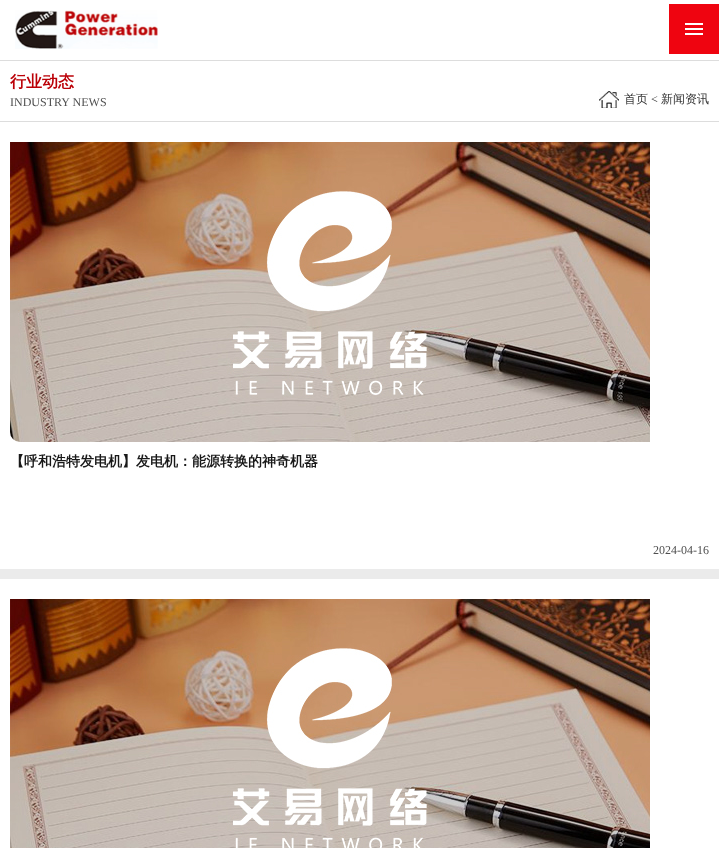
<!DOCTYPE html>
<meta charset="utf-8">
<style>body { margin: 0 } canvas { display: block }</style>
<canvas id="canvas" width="719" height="848"></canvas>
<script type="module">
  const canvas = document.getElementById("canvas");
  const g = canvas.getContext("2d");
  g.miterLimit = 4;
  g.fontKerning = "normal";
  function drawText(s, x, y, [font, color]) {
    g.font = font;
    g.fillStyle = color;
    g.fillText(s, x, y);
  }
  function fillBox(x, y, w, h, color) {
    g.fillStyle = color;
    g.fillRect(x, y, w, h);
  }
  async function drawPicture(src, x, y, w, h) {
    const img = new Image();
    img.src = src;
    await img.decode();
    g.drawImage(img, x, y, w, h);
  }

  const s1 = ["bold 16px WenQuanYi Zen Hei", "#BB0007"];
  const s2 = ["12px Liberation Serif", "#4F4F4F"];
  const s3 = ["500 12px WenQuanYi Zen Hei", "#333333"];
  const s4 = ["12px Liberation Serif", "#333333"];
  const s5 = ["bold 14px WenQuanYi Zen Hei", "#191919"];

  fillBox(0, 0, 719, 848, "#FFFFFF");
  await drawPicture("pic1.png", 15, 10, 143, 39);
  fillBox(669, 4, 50, 50, "#EF0410");
  fillBox(685, 28, 18, 2, "#FFFFFF");
  fillBox(685, 23, 18, 2, "#FFFFFF");
  fillBox(685, 33, 18, 2, "#FFFFFF");
  fillBox(0, 60, 719, 1, "#DDDDDD");
  fillBox(0, 121, 719, 1, "#DDDDDD");
  drawText("行业动态", 10, 87, s1);
  drawText("INDUSTRY NEWS", 10, 106, s2);
  await drawPicture("pic2.png", 599, 91, 20, 17);
  drawText("首页", 624, 103, s3);
  drawText("<", 651, 103, s4);
  drawText("新闻资讯", 661, 103, s3);
  fillBox(0, 569, 719, 10, "#EBEBEB");
  await drawPicture("pic3.png", 10, 142, 640, 300);
  drawText("【呼和浩特发电机】发电机：能源转换的神奇机器", 10, 466, s5);
  drawText("2024-04-16", 653, 554, s2);
  await drawPicture("pic4.png", 10, 599, 640, 249);
</script>
